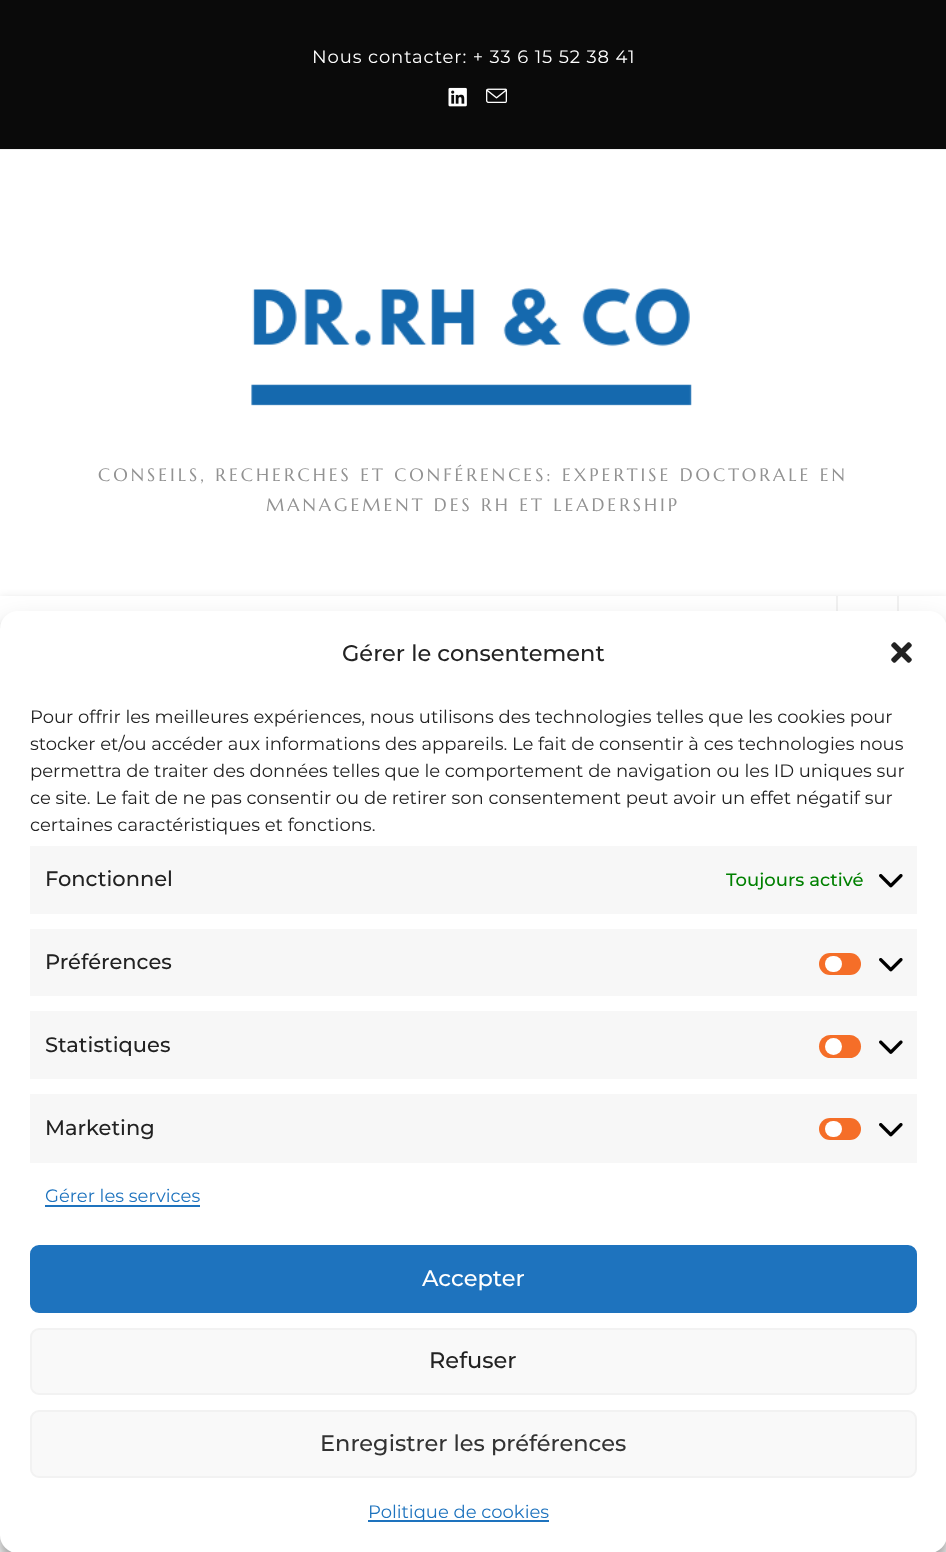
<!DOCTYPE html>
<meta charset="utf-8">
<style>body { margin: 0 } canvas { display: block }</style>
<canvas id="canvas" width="946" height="1552"></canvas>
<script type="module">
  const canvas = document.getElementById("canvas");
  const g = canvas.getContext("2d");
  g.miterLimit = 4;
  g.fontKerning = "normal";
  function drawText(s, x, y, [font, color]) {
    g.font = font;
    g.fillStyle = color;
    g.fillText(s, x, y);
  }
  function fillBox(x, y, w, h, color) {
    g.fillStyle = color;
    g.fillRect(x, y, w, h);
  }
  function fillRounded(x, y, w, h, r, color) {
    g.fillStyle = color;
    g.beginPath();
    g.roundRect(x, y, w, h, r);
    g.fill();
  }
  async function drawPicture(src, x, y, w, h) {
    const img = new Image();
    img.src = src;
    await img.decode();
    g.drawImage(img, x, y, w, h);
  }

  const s1 = ["18px Montserrat", "#FFFFFF"];
  const s2 = ["18px Marcellus SC", "#929292"];
  const s3 = ["500 22.5px Montserrat", "#222222"];
  const s4 = ["18px Montserrat", "#222222"];
  const s5 = ["500 21px Montserrat", "#222222"];
  const s6 = ["500 18px Montserrat", "#008000"];
  const s7 = ["18px Montserrat", "#1E73BE"];
  const s8 = ["500 22.5px Montserrat", "#FFFFFF"];
  const s9 = ["500 22.5px Montserrat", "#333333"];

  fillBox(0, 0, 946, 1552, "#FFFFFF");
  fillBox(0, 0, 946, 149, "#0A0A0A");
  fillBox(0, 149, 946, 1, "#F1F1F1");
  g.letterSpacing = "0.9px";
  drawText("Nous contacter: + 33 6 15 52 38 41", 312, 63, s1);
  await drawPicture("pic1.png", 448, 87, 19, 20);
  await drawPicture("pic2.png", 486, 88, 21, 15);
  await drawPicture("pic3.png", 251, 288, 441, 118);
  g.letterSpacing = "3px";
  drawText("CONSEILS, RECHERCHES ET CONFÉRENCES: EXPERTISE DOCTORALE EN", 98, 481, s2);
  drawText("MANAGEMENT DES RH ET LEADERSHIP", 266, 511, s2);
  g.fillStyle = "rgba(0, 0, 0, 0.1)";
  g.filter = "blur(4px)";
  g.beginPath();
  g.rect(0, 597, 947, 60);
  g.fill();
  g.filter = "none";
  fillBox(0, 596, 946, 33, "#FFFFFF");
  fillBox(897, 596, 2, 15, "#F1F1F1");
  fillBox(836, 596, 2, 15, "#F1F1F1");
  g.fillStyle = "rgba(0, 0, 0, 0.23)";
  g.filter = "blur(4.5px)";
  g.beginPath();
  g.roundRect(0, 620, 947, 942, 18);
  g.fill();
  g.filter = "none";
  g.fillStyle = "rgba(0, 0, 0, 0.19)";
  g.filter = "blur(15px)";
  g.beginPath();
  g.roundRect(0, 626, 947, 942, 18);
  g.fill();
  g.filter = "none";
  fillRounded(0, 611, 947, 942, 18, "#FFFFFF");
  g.letterSpacing = "0px";
  drawText("Gérer le consentement", 342, 661, s3);
  await drawPicture("pic4.png", 891, 642, 21, 21);
  drawText("Pour offrir les meilleures expériences, nous utilisons des technologies telles que les cookies pour", 30, 723, s4);
  drawText("stocker et/ou accéder aux informations des appareils. Le fait de consentir à ces technologies nous", 30, 750, s4);
  drawText("permettra de traiter des données telles que le comportement de navigation ou les ID uniques sur", 30, 777, s4);
  drawText("ce site. Le fait de ne pas consentir ou de retirer son consentement peut avoir un effet négatif sur", 30, 804, s4);
  drawText("certaines caractéristiques et fonctions.", 30, 831, s4);
  fillBox(30, 846, 887, 68, "#F7F7F7");
  drawText("Fonctionnel", 45, 886, s5);
  drawText("Toujours activé", 726, 886, s6);
  await drawPicture("pic5.png", 879, 874, 24, 14);
  fillBox(30, 929, 887, 67, "#F7F7F7");
  drawText("Préférences", 45, 969, s5);
  fillRounded(819, 953, 42, 22, 11, "#F56E28");
  fillRounded(825, 956, 17, 16, 8, "#FFFFFF");
  await drawPicture("pic5.png", 879, 958, 24, 14);
  fillBox(30, 1011, 887, 68, "#F7F7F7");
  drawText("Statistiques", 45, 1052, s5);
  fillRounded(819, 1035, 42, 23, 11.5, "#F56E28");
  g.fillStyle = "#FFFFFF";
  g.beginPath();
  g.arc(833.5, 1046.5, 8.5, 0, Math.PI * 2);
  g.fill();
  await drawPicture("pic6.png", 879, 1040, 24, 14);
  fillBox(30, 1094, 887, 69, "#F7F7F7");
  drawText("Marketing", 45, 1135, s5);
  fillRounded(819, 1118, 42, 22, 11, "#F56E28");
  fillRounded(825, 1121, 17, 16, 8, "#FFFFFF");
  await drawPicture("pic5.png", 879, 1123, 24, 14);
  drawText("Gérer les services", 45, 1202, s7);
  fillBox(45, 1205, 155, 2, "#1E73BE");
  g.beginPath();
  g.roundRect(31, 1246, 885, 66, 8);
  g.fill();
  g.strokeStyle = "#1E73BE";
  g.lineWidth = 2;
  g.stroke();
  drawText("Accepter", 422, 1286, s8);
  g.fillStyle = "#F9F9F9";
  g.beginPath();
  g.roundRect(31, 1329, 885, 65, 8);
  g.fill();
  g.strokeStyle = "#F2F2F2";
  g.stroke();
  drawText("Refuser", 429, 1368, s3);
  g.fillStyle = "#F9F9F9";
  g.beginPath();
  g.roundRect(31, 1411, 885, 66, 8);
  g.fill();
  g.stroke();
  drawText("Enregistrer les préférences", 320, 1451, s9);
  fillBox(368, 1520, 181, 2, "#1E73BE");
  drawText("Politique de cookies", 368, 1518, s7);
</script>
